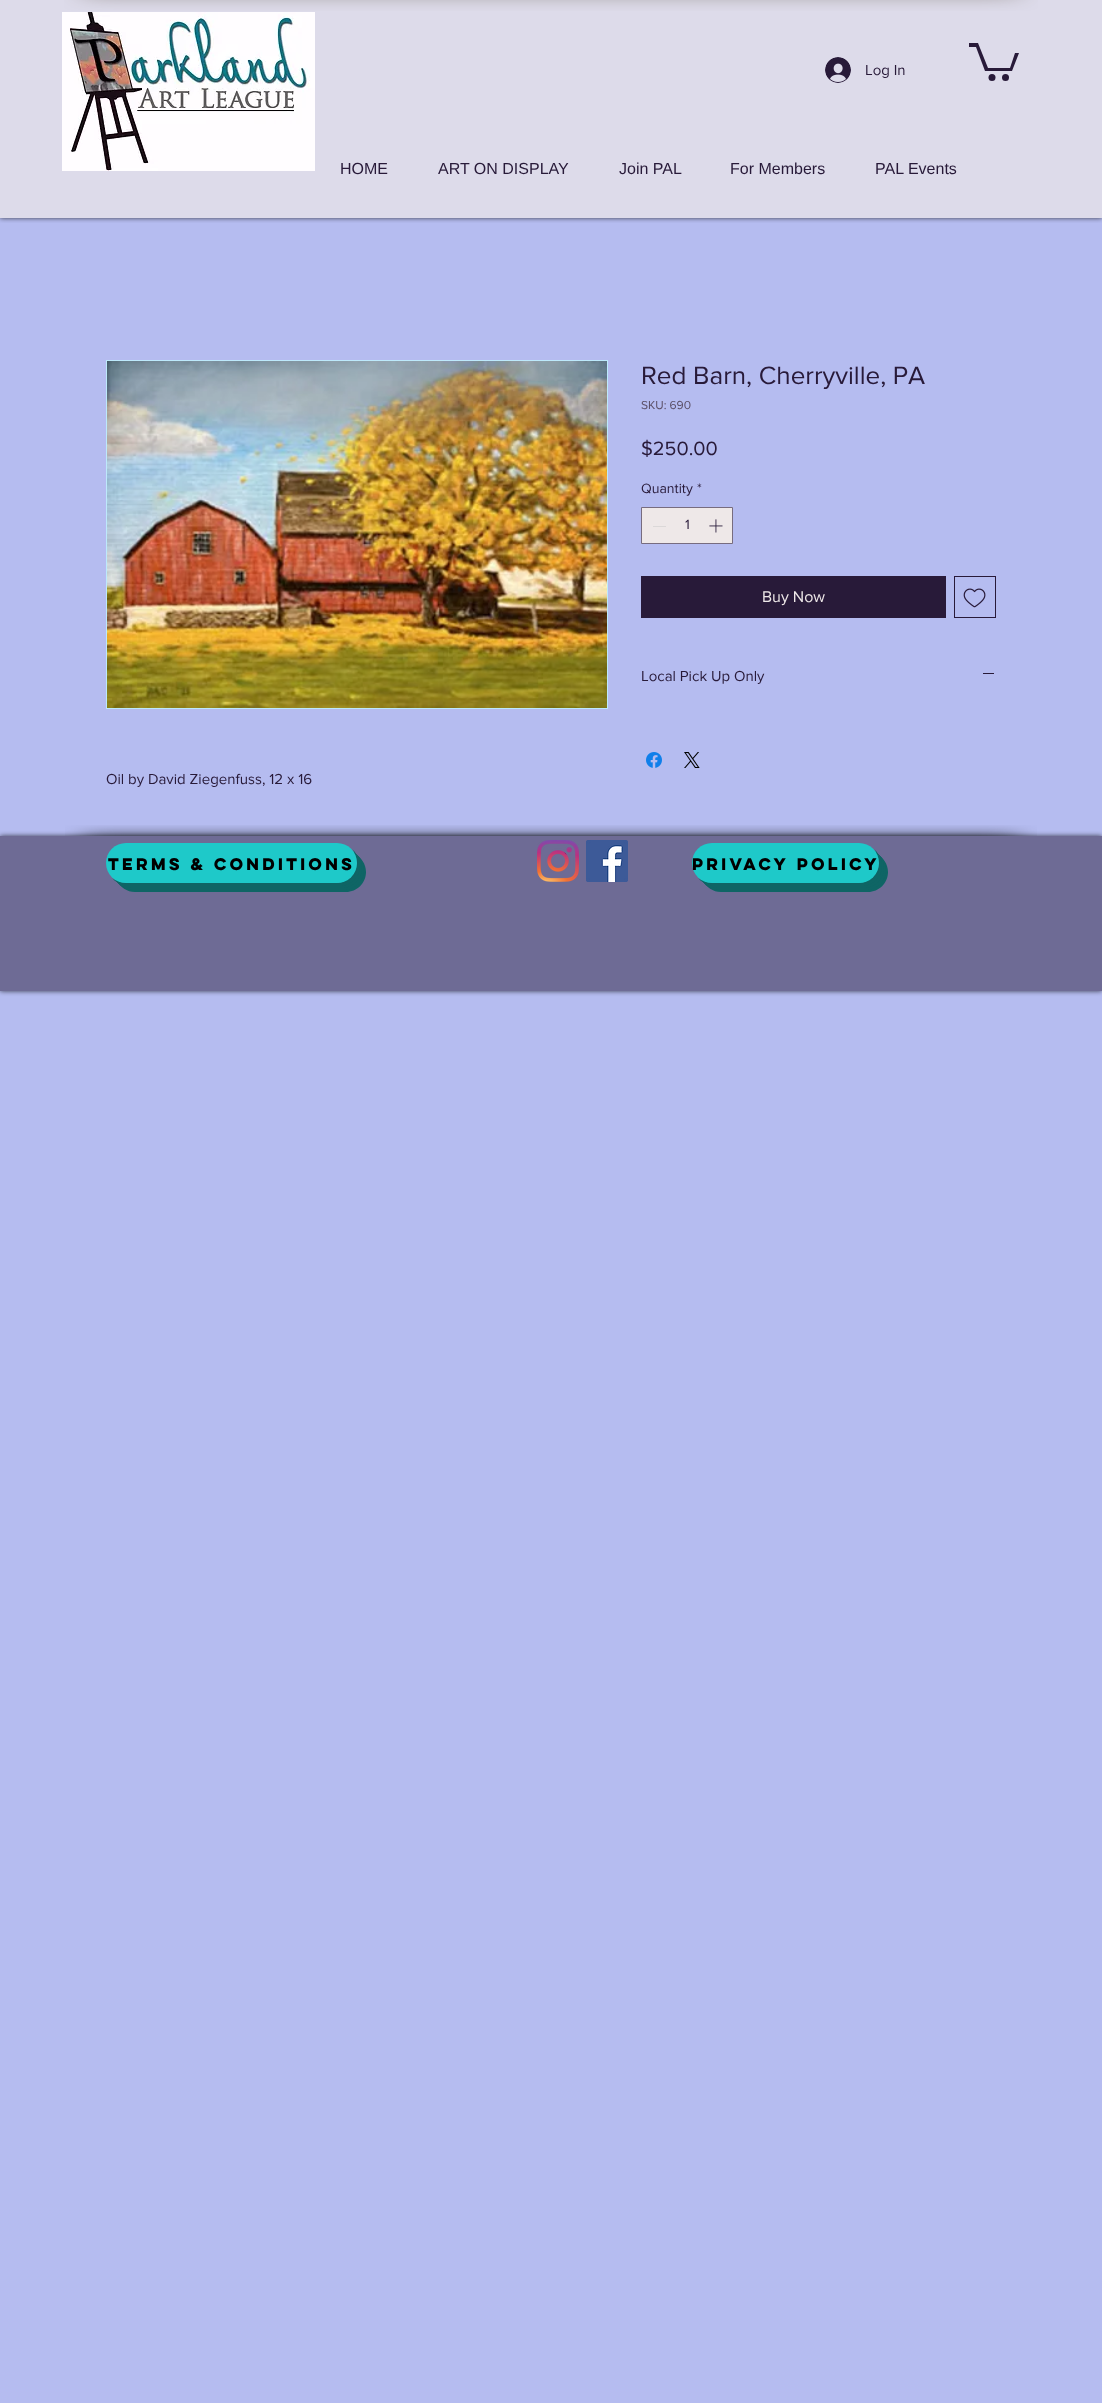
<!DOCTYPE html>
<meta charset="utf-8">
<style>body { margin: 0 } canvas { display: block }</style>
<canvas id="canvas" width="1102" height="2403"></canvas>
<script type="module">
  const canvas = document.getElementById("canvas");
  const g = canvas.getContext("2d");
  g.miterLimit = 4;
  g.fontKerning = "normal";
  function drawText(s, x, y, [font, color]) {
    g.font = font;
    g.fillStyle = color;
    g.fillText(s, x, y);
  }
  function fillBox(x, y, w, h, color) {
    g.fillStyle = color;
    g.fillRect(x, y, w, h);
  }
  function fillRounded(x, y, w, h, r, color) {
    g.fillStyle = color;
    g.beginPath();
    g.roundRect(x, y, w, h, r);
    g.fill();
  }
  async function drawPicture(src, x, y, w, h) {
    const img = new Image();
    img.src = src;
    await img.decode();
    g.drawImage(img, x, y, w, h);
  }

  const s1 = ["15px 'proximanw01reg'", "#281A39"];
  const s2 = ["16px Liberation Sans", "#281A39"];
  const s3 = ["26px 'proximanw01reg'", "#281A39"];
  const s4 = ["12px 'proximanw01reg'", "#5A4E65"];
  const s5 = ["20px 'proximanw01reg'", "#281A39"];
  const s6 = ["14px 'proximanw01reg'", "#281A39"];
  const s7 = ["16px 'proximanw01reg'", "#EEE8E8"];
  const s8 = ["bold 15px 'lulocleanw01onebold'", "#000000"];

  fillBox(0, 0, 1102, 2403, "#B5BCF0");
  fillBox(0, 0, 1102, 218, "#DDDBEA");
  await drawPicture("pic1.png", 64, 0, 97, 11);
  await drawPicture("pic2.png", 161, 0, 780, 11);
  await drawPicture("pic3.png", 941, 0, 97, 11);
  g.save();
  g.beginPath();
  g.rect(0, 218, 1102, 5);
  g.clip();
  g.fillStyle = "rgba(0, 0, 0, 0.7)";
  g.filter = "blur(2.5px)";
  g.beginPath();
  g.rect(0, 0, 1102, 218);
  g.fill();
  g.filter = "none";
  g.restore();
  await drawPicture("pic4.png", 62, 12, 253, 159);
  await drawPicture("pic5.png", 825, 57, 26, 26);
  drawText("Log In", 865, 75, s1);
  g.beginPath();
  g.moveTo(1019, 53);
  g.lineTo(1012, 71);
  g.lineTo(985, 71);
  g.lineTo(976, 47);
  g.lineTo(969, 47);
  g.lineTo(969, 43);
  g.lineTo(978, 43);
  g.lineTo(988, 68);
  g.lineTo(1010, 68);
  g.lineTo(1015, 53);
  g.fill();
  g.beginPath();
  g.arc(1005.5, 77.5, 3.5, 0, Math.PI * 2);
  g.fill();
  g.beginPath();
  g.arc(992, 77.5, 3.5, 0, Math.PI * 2);
  g.fill();
  drawText("HOME", 340, 174, s2);
  drawText("ART ON DISPLAY", 438, 174, s2);
  drawText("Join PAL", 619, 174, s2);
  drawText("For Members", 730, 174, s2);
  drawText("PAL Events", 875, 174, s2);
  drawText("Red Barn, Cherryville, PA", 641, 384, s3);
  drawText("SKU: 690", 641, 409, s4);
  drawText("$250.00", 641, 455, s5);
  drawText("Quantity", 641, 493, s6);
  drawText("*", 697, 493, s6);
  g.fillStyle = "#EEE8E8";
  g.beginPath();
  g.rect(641.5, 507.5, 91, 36);
  g.fill();
  g.strokeStyle = "#776C7F";
  g.stroke();
  fillBox(653, 526, 13, 1, "#DBD8D8");
  drawText("1", 685, 529, s6);
  await drawPicture("pic6.png", 709, 519, 14, 14);
  fillBox(641, 576, 305, 42, "#281A39");
  drawText("Buy Now", 762, 602, s7);
  g.strokeStyle = "#281A39";
  g.strokeRect(954.5, 576.5, 41, 41);
  await drawPicture("pic7.png", 963, 588, 23, 20);
  drawText("Local Pick Up Only", 641, 681, s1);
  fillBox(983, 673, 11, 1, "#281A39");
  await drawPicture("pic8.png", 646, 752, 16, 16);
  await drawPicture("pic9.png", 684, 752, 16, 16);
  g.strokeStyle = "#BDE9FB";
  g.strokeRect(106.5, 360.5, 501, 348);
  await drawPicture("pic10.png", 107, 361, 500, 347);
  drawText("Oil by David Ziegenfuss, 12 x 16", 106, 784, s1);
  g.fillStyle = "rgba(0, 0, 0, 0.7)";
  g.filter = "blur(2.5px)";
  g.beginPath();
  g.rect(0, 836, 1102, 155);
  g.fill();
  g.filter = "none";
  fillBox(0, 836, 1102, 155, "#6E6B95");
  await drawPicture("pic11.png", 65, 825, 96, 11);
  await drawPicture("pic12.png", 161, 825, 780, 11);
  await drawPicture("pic13.png", 941, 825, 96, 11);
  g.fillStyle = "#0F6565";
  g.beginPath();
  g.moveTo(117, 881);
  g.bezierCurveTo(120, 887, 127, 892, 135, 892);
  g.lineTo(346, 892);
  g.bezierCurveTo(357, 892, 366, 883, 366, 872);
  g.bezierCurveTo(366, 864, 361, 857, 355, 854);
  g.bezierCurveTo(356, 857, 357, 860, 357, 863);
  g.bezierCurveTo(357, 874, 348, 883, 337, 883);
  g.lineTo(126, 883);
  g.bezierCurveTo(123, 883, 120, 882, 117, 881);
  g.closePath();
  g.fill();
  g.beginPath();
  g.moveTo(116, 880);
  g.bezierCurveTo(119, 886, 126, 890, 133, 890);
  g.lineTo(344, 890);
  g.bezierCurveTo(355, 890, 364, 881, 364, 870);
  g.bezierCurveTo(364, 863, 360, 856, 354, 853);
  g.bezierCurveTo(356, 856, 357, 859, 357, 863);
  g.bezierCurveTo(357, 874, 348, 883, 337, 883);
  g.lineTo(126, 883);
  g.bezierCurveTo(122, 883, 119, 882, 116, 880);
  g.closePath();
  g.fill();
  g.beginPath();
  g.moveTo(115, 879);
  g.bezierCurveTo(118, 885, 124, 888, 131, 888);
  g.lineTo(342, 888);
  g.bezierCurveTo(353, 888, 362, 879, 362, 868);
  g.bezierCurveTo(362, 861, 359, 855, 353, 852);
  g.bezierCurveTo(356, 855, 357, 859, 357, 863);
  g.bezierCurveTo(357, 874, 348, 883, 337, 883);
  g.lineTo(126, 883);
  g.bezierCurveTo(122, 883, 118, 882, 115, 879);
  g.closePath();
  g.fill();
  g.beginPath();
  g.moveTo(113, 879);
  g.bezierCurveTo(117, 883, 123, 886, 129, 886);
  g.lineTo(340, 886);
  g.bezierCurveTo(351, 886, 360, 877, 360, 866);
  g.bezierCurveTo(360, 860, 357, 854, 353, 850);
  g.bezierCurveTo(355, 854, 357, 858, 357, 863);
  g.bezierCurveTo(357, 874, 348, 883, 337, 883);
  g.lineTo(126, 883);
  g.bezierCurveTo(121, 883, 117, 881, 113, 879);
  g.closePath();
  g.fill();
  g.beginPath();
  g.moveTo(112, 878);
  g.bezierCurveTo(116, 882, 121, 884, 127, 884);
  g.lineTo(338, 884);
  g.bezierCurveTo(349, 884, 358, 875, 358, 864);
  g.bezierCurveTo(358, 858, 356, 853, 352, 849);
  g.bezierCurveTo(355, 853, 357, 858, 357, 863);
  g.bezierCurveTo(357, 874, 348, 883, 337, 883);
  g.lineTo(126, 883);
  g.bezierCurveTo(121, 883, 116, 881, 112, 878);
  g.closePath();
  g.fill();
  fillRounded(106, 843, 251, 40, 20, "#1EC9C9");
  drawText("Terms & Conditions", 108, 870, s8);
  await drawPicture("pic14.png", 537, 840, 42, 42);
  await drawPicture("pic15.png", 586, 840, 42, 42);
  g.fillStyle = "#0F6565";
  g.beginPath();
  g.moveTo(703, 881);
  g.bezierCurveTo(706, 887, 713, 892, 721, 892);
  g.lineTo(868, 892);
  g.bezierCurveTo(879, 892, 888, 883, 888, 872);
  g.bezierCurveTo(888, 864, 883, 857, 877, 854);
  g.bezierCurveTo(878, 857, 879, 860, 879, 863);
  g.bezierCurveTo(879, 874, 870, 883, 859, 883);
  g.lineTo(712, 883);
  g.bezierCurveTo(709, 883, 706, 882, 703, 881);
  g.closePath();
  g.fill();
  g.beginPath();
  g.moveTo(702, 880);
  g.bezierCurveTo(705, 886, 712, 890, 719, 890);
  g.lineTo(866, 890);
  g.bezierCurveTo(877, 890, 886, 881, 886, 870);
  g.bezierCurveTo(886, 863, 882, 856, 876, 853);
  g.bezierCurveTo(878, 856, 879, 859, 879, 863);
  g.bezierCurveTo(879, 874, 870, 883, 859, 883);
  g.lineTo(712, 883);
  g.bezierCurveTo(708, 883, 705, 882, 702, 880);
  g.closePath();
  g.fill();
  g.beginPath();
  g.moveTo(701, 879);
  g.bezierCurveTo(704, 885, 710, 888, 717, 888);
  g.lineTo(864, 888);
  g.bezierCurveTo(875, 888, 884, 879, 884, 868);
  g.bezierCurveTo(884, 861, 881, 855, 875, 852);
  g.bezierCurveTo(878, 855, 879, 859, 879, 863);
  g.bezierCurveTo(879, 874, 870, 883, 859, 883);
  g.lineTo(712, 883);
  g.bezierCurveTo(708, 883, 704, 882, 701, 879);
  g.closePath();
  g.fill();
  g.beginPath();
  g.moveTo(699, 879);
  g.bezierCurveTo(703, 883, 709, 886, 715, 886);
  g.lineTo(862, 886);
  g.bezierCurveTo(873, 886, 882, 877, 882, 866);
  g.bezierCurveTo(882, 860, 879, 854, 875, 850);
  g.bezierCurveTo(877, 854, 879, 858, 879, 863);
  g.bezierCurveTo(879, 874, 870, 883, 859, 883);
  g.lineTo(712, 883);
  g.bezierCurveTo(707, 883, 703, 881, 699, 879);
  g.closePath();
  g.fill();
  g.beginPath();
  g.moveTo(698, 878);
  g.bezierCurveTo(702, 882, 707, 884, 713, 884);
  g.lineTo(860, 884);
  g.bezierCurveTo(871, 884, 880, 875, 880, 864);
  g.bezierCurveTo(880, 858, 878, 853, 874, 849);
  g.bezierCurveTo(877, 853, 879, 858, 879, 863);
  g.bezierCurveTo(879, 874, 870, 883, 859, 883);
  g.lineTo(712, 883);
  g.bezierCurveTo(707, 883, 702, 881, 698, 878);
  g.closePath();
  g.fill();
  fillRounded(692, 843, 187, 40, 20, "#1EC9C9");
  drawText("Privacy Policy", 692, 870, s8);
</script>
